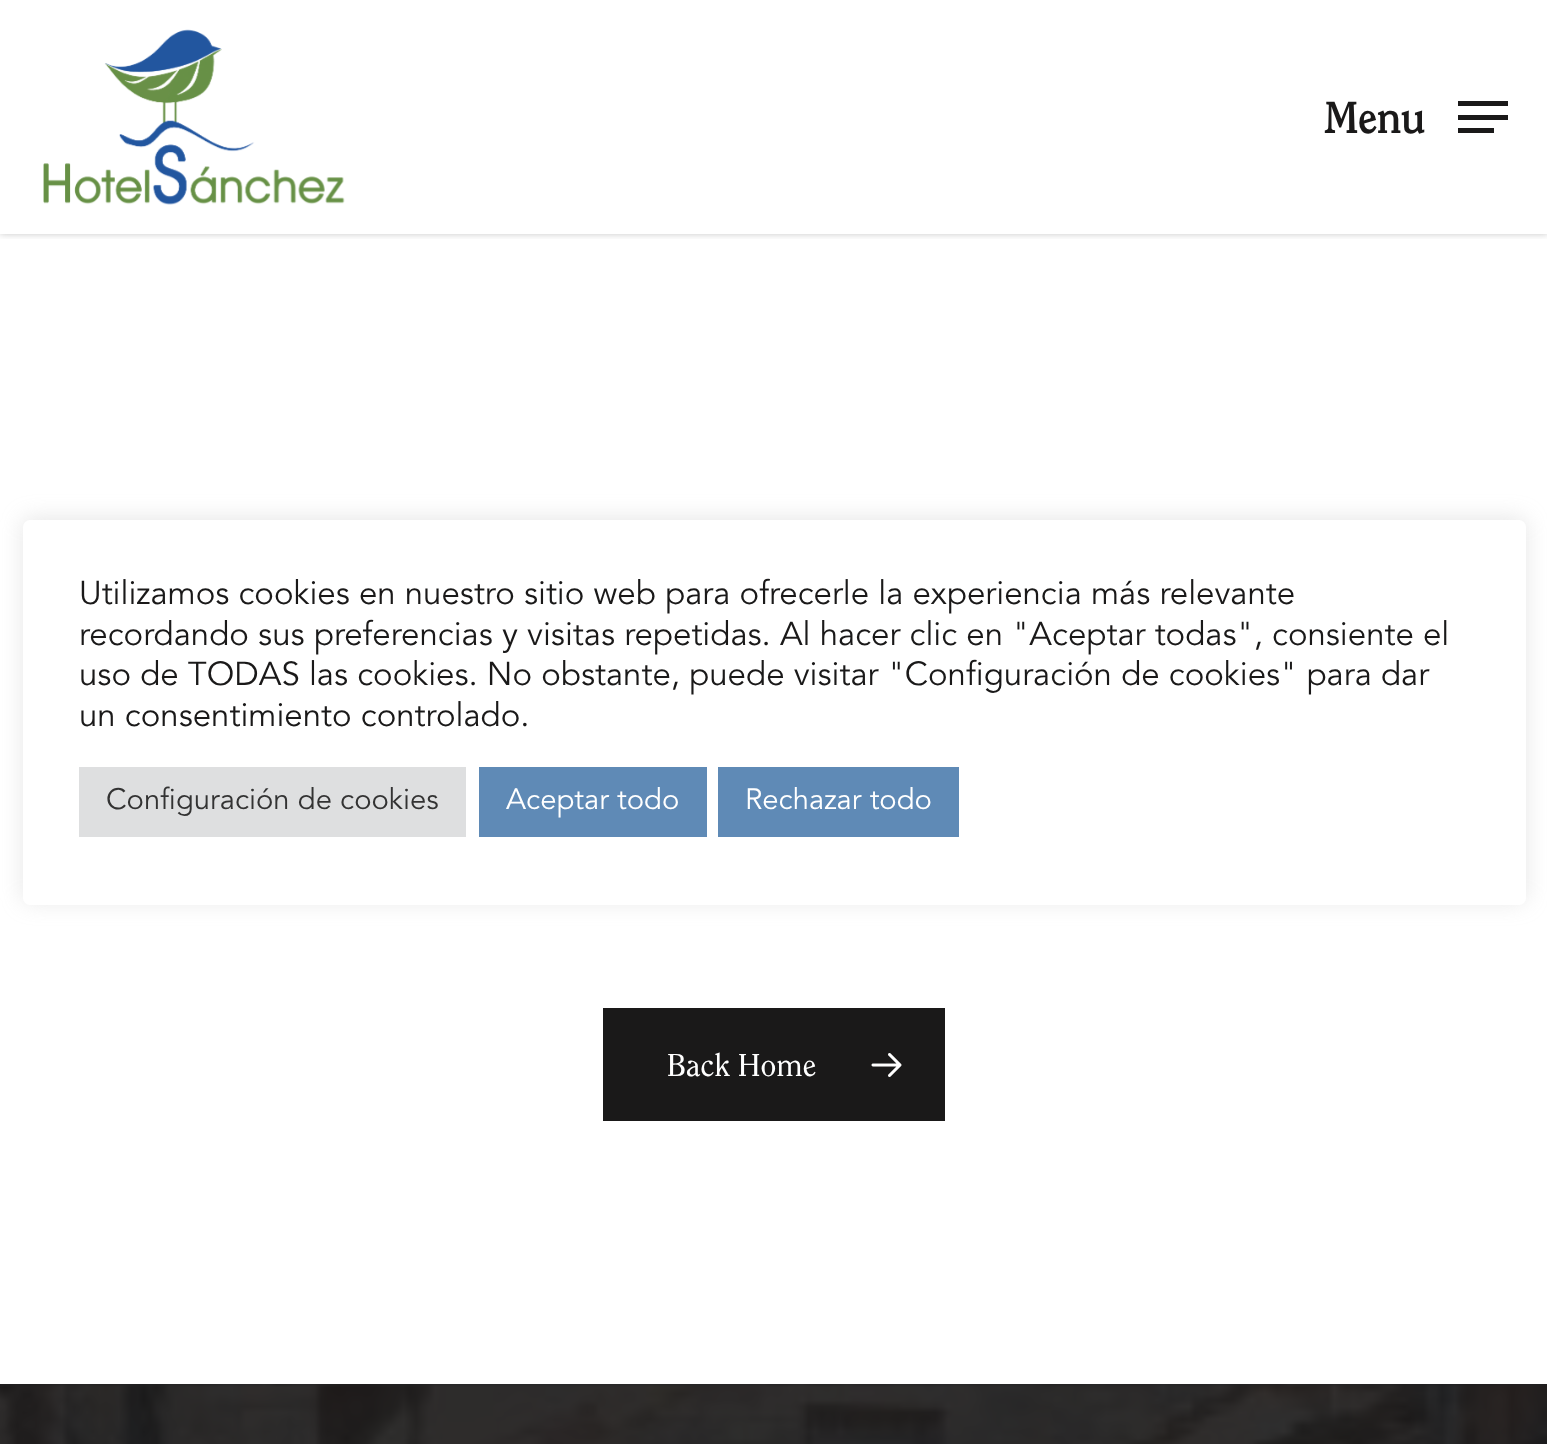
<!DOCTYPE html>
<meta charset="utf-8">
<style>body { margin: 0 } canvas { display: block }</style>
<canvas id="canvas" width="1547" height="1444"></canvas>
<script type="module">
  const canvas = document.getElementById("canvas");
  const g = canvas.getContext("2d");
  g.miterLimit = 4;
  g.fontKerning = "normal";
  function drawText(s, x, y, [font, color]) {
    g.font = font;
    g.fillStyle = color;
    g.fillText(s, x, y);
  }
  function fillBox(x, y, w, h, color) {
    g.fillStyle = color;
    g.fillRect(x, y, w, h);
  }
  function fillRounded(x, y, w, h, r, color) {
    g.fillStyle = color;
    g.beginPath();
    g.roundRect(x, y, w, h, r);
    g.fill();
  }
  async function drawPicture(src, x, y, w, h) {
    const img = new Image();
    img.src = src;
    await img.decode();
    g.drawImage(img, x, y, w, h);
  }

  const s1 = ["bold 43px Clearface", "#1A1919"];
  const s2 = ["31.5px Clearface", "#FFFFFF"];
  const s3 = ["33px Avenir", "#1A1919"];
  const s4 = ["29.25px Avenir", "#333333"];
  const s5 = ["29.25px Avenir", "#FFFFFF"];

  fillBox(0, 0, 1547, 1444, "#FFFFFF");
  g.save();
  g.beginPath();
  g.rect(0, 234, 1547, 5);
  g.clip();
  g.fillStyle = "rgba(0, 0, 0, 0.22)";
  g.filter = "blur(3.5px)";
  g.beginPath();
  g.rect(0, 0, 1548, 234);
  g.fill();
  g.filter = "none";
  g.restore();
  await drawPicture("pic1.png", 43, 29, 302, 176);
  drawText("Menu", 1324, 133, s1);
  fillBox(1458, 101, 50, 5, "#1A1919");
  fillBox(1458, 128, 36, 5, "#1A1919");
  fillBox(1458, 115, 50, 5, "#1A1919");
  fillBox(603, 1008, 342, 113, "#1A1919");
  drawText("Back Home", 667, 1076, s2);
  await drawPicture("pic2.png", 871, 1053, 31, 24);
  await drawPicture("pic3.png", 0, 1384, 1547, 60);
  g.fillStyle = "rgba(172, 171, 171, 0.3)";
  g.filter = "blur(11px)";
  g.beginPath();
  g.roundRect(23, 518, 1503, 384, 7);
  g.fill();
  g.filter = "none";
  fillRounded(23, 520, 1503, 385, 7, "#FFFFFF");
  drawText("Utilizamos cookies en nuestro sitio web para ofrecerle la experiencia más relevante", 79, 604, s3);
  drawText("recordando sus preferencias y visitas repetidas. Al hacer clic en \"Aceptar todas\", consiente el", 79, 645, s3);
  drawText("uso de TODAS las cookies. No obstante, puede visitar \"Configuración de cookies\" para dar", 79, 685, s3);
  drawText("un consentimiento controlado.", 79, 726, s3);
  fillBox(79, 767, 387, 70, "#DEDFE0");
  drawText("Configuración de cookies", 106, 809, s4);
  fillBox(479, 767, 228, 70, "#5F8AB6");
  drawText("Aceptar todo", 506, 809, s5);
  fillBox(718, 767, 241, 70, "#5F8AB6");
  drawText("Rechazar todo", 745, 809, s5);
</script>
